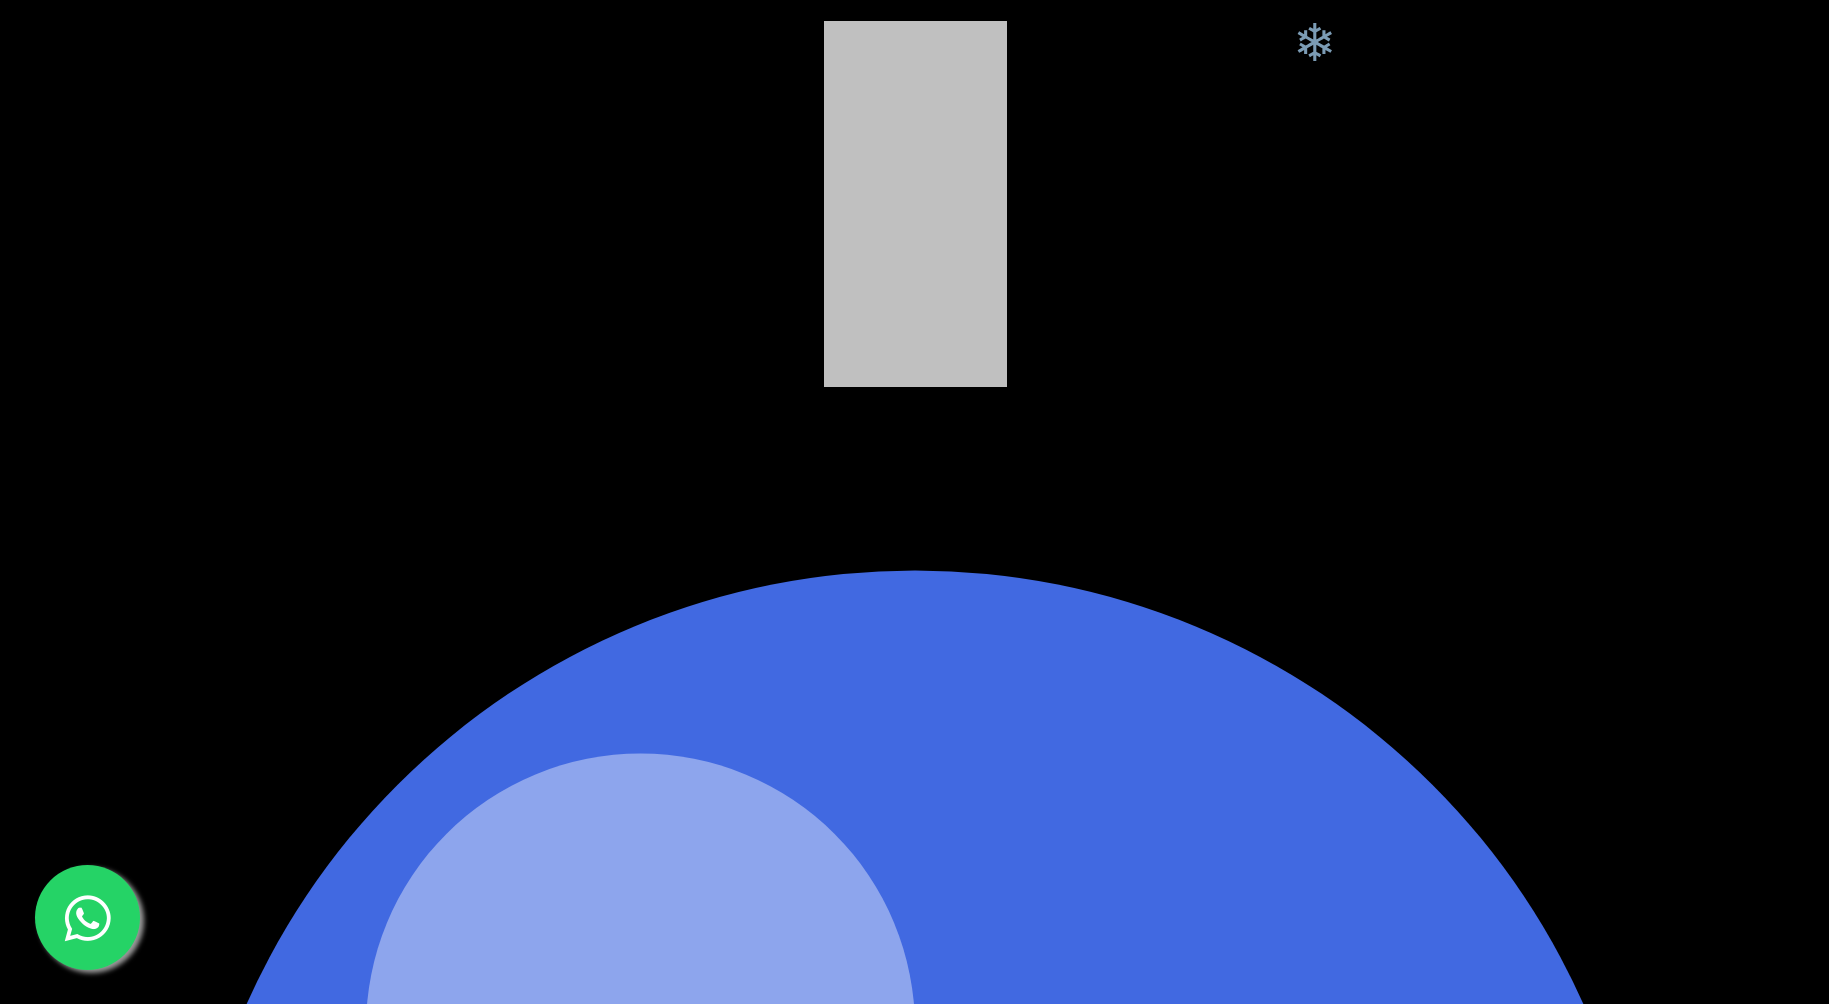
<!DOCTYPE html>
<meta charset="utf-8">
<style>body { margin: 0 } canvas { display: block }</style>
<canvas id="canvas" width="1829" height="1004"></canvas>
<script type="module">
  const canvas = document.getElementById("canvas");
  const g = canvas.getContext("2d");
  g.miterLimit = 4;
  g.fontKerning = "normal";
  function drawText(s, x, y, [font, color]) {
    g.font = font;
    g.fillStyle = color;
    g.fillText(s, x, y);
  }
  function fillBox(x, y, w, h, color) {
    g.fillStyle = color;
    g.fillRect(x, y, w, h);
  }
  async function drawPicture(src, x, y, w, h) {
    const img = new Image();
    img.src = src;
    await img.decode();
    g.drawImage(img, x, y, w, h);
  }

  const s1 = ["52px DejaVu Sans", "#7B9BB4"];

  fillBox(0, 0, 1829, 1004, "#000000");
  fillBox(824, 21, 183, 366, "#C0C0C0");
  g.fillStyle = "#4169E1";
  g.beginPath();
  g.arc(915, 1302.5, 732, 0, Math.PI * 2);
  g.fill();
  g.fillStyle = "#8DA5ED";
  g.beginPath();
  g.arc(640.5, 1028, 274.5, 0, Math.PI * 2);
  g.fill();
  drawText("❄", 1293, 61, s1);
  g.fillStyle = "#999999";
  g.filter = "blur(2.5px)";
  g.beginPath();
  g.roundRect(39, 868, 105, 105, 52.5);
  g.fill();
  g.filter = "none";
  g.fillStyle = "#25D366";
  g.beginPath();
  g.arc(87.5, 917.5, 52.5, 0, Math.PI * 2);
  g.fill();
  await drawPicture("pic1.png", 64, 895, 47, 47);
</script>
